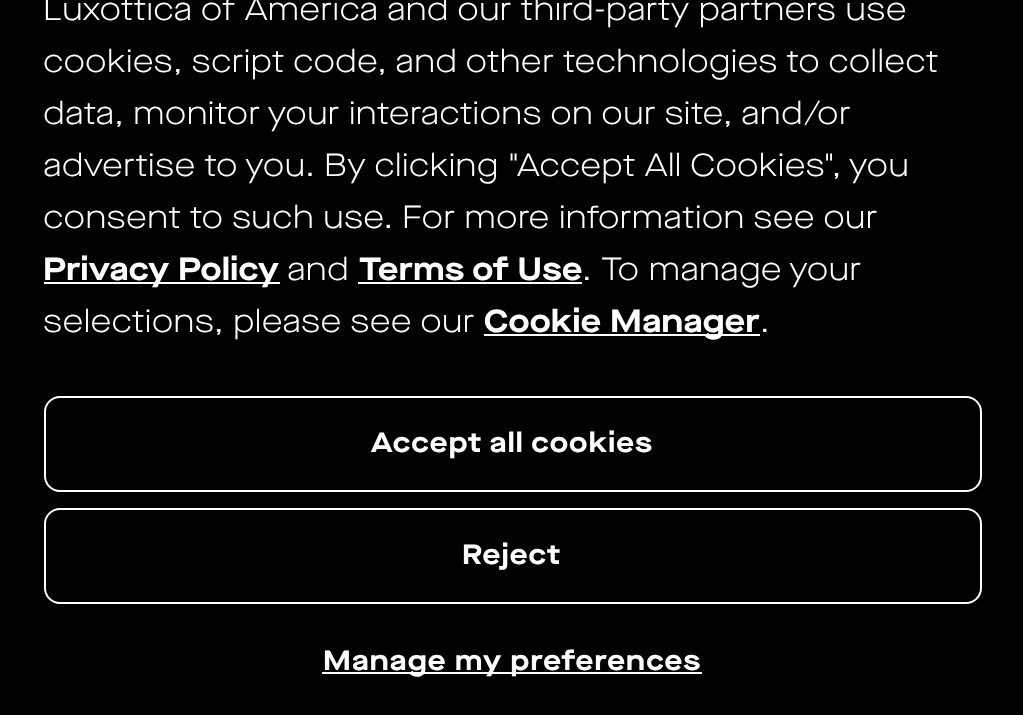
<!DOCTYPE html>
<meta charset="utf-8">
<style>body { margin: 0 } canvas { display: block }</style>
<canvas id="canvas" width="1023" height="715"></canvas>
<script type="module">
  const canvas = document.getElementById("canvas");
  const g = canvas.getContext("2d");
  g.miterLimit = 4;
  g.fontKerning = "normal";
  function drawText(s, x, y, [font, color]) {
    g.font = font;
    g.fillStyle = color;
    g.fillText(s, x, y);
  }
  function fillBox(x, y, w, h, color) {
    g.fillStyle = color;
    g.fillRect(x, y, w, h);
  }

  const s1 = ["300 32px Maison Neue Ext", "#FFFFFF"];
  const s2 = ["bold 32px Maison Neue Ext", "#FFFFFF"];
  const s3 = ["bold 28px Maison Neue Ext", "#FFFFFF"];

  fillBox(0, 0, 1023, 715, "#000000");
  g.letterSpacing = "0.4px";
  g.wordSpacing = "0.25px";
  drawText("Luxottica of America and our third-party partners use", 43, 20, s1);
  g.wordSpacing = "0px";
  drawText("cookies, script code, and other technologies to collect", 43, 72, s1);
  drawText("data, monitor your interactions on our site, and/or", 43, 124, s1);
  drawText("advertise to you.", 43, 176, s1);
  drawText("By clicking \"Accept All Cookies\", you", 324, 176, s1);
  drawText("consent to such use.", 43, 228, s1);
  drawText("For more information see our", 402, 228, s1);
  fillBox(44, 282, 236, 2, "#FFFFFF");
  drawText("Privacy Policy", 43, 280, s2);
  drawText("and", 287, 280, s1);
  drawText("Terms of Use", 359, 280, s2);
  drawText(".", 582, 280, s1);
  fillBox(358, 282, 224, 2, "#FFFFFF");
  drawText("To manage your", 601, 280, s1);
  drawText("selections, please see our", 43, 332, s1);
  fillBox(484, 334, 276, 2, "#FFFFFF");
  drawText("Cookie Manager", 484, 332, s2);
  drawText(".", 760, 332, s1);
  g.beginPath();
  g.roundRect(45, 397, 936, 94, 15);
  g.strokeStyle = "#FFFFFF";
  g.lineWidth = 2;
  g.stroke();
  g.letterSpacing = "1.2px";
  drawText("Accept all cookies", 371, 452, s3);
  g.beginPath();
  g.roundRect(45, 509, 936, 94, 15);
  g.stroke();
  drawText("Reject", 462, 564, s3);
  fillBox(322, 672, 380, 2, "#FFFFFF");
  drawText("Manage my preferences", 323, 670, s3);
</script>
